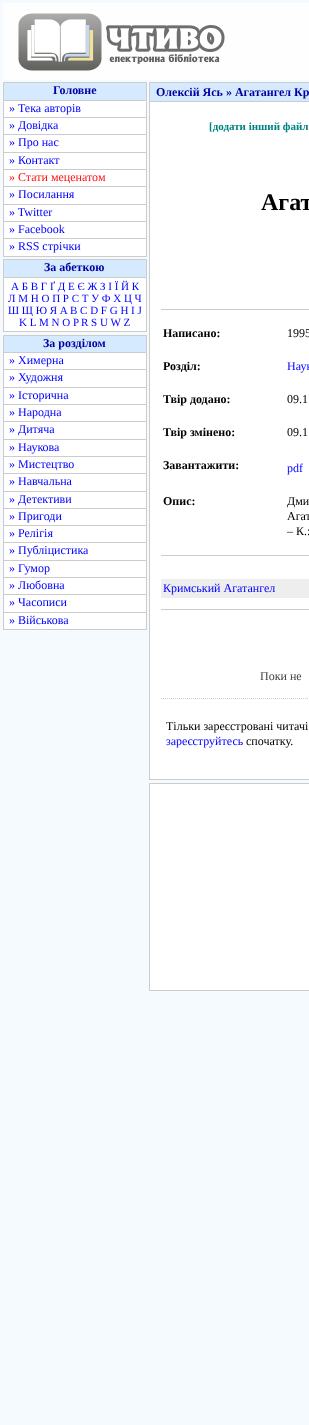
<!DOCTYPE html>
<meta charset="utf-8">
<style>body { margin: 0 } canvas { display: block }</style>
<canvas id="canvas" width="309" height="1425"></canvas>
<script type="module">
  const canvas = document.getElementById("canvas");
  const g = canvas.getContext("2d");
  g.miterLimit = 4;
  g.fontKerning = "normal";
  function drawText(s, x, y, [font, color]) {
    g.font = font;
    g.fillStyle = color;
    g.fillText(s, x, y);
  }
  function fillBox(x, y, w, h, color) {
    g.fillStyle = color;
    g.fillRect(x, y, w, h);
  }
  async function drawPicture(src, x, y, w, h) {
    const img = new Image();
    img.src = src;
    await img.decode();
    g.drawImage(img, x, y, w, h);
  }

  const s1 = ["bold 12px Liberation Serif", "#0000A0"];
  const s2 = ["12px Liberation Serif", "#0000FF"];
  const s3 = ["12px Liberation Serif", "#FF1111"];
  const s4 = ["11px Liberation Serif", "#0000FF"];
  const s5 = ["bold 11px Liberation Serif", "#008080"];
  const s6 = ["bold 24px Liberation Serif", "#000000"];
  const s7 = ["bold 12px Liberation Serif", "#000000"];
  const s8 = ["12px Liberation Serif", "#000000"];
  const s9 = ["12px Liberation Serif", "#444444"];

  fillBox(0, 0, 309, 1425, "#F4FAFE");
  fillBox(3, 3, 306, 77, "#FEFEFF");
  await drawPicture("pic1.png", 18, 13, 207, 58);
  g.fillStyle = "#D5EAFF";
  g.beginPath();
  g.rect(3.5, 82.5, 143, 18);
  g.fill();
  g.strokeStyle = "#CCCCCC";
  g.stroke();
  drawText("Головне", 53, 94, s1);
  fillBox(4, 101, 142, 16, "#FFFFFF");
  fillBox(146, 101, 1, 156, "#CCCCCC");
  fillBox(3, 117, 144, 1, "#CCCCCC");
  fillBox(3, 101, 1, 17, "#CCCCCC");
  drawText("» Тека авторів", 9, 112, s2);
  fillBox(4, 118, 142, 16, "#FFFFFF");
  fillBox(3, 134, 144, 1, "#CCCCCC");
  fillBox(3, 118, 1, 17, "#CCCCCC");
  drawText("» Довідка", 9, 129, s2);
  fillBox(4, 135, 142, 17, "#FFFFFF");
  fillBox(3, 152, 144, 1, "#CCCCCC");
  fillBox(3, 135, 1, 18, "#CCCCCC");
  drawText("» Про нас", 9, 146, s2);
  fillBox(4, 153, 142, 16, "#FFFFFF");
  fillBox(3, 169, 144, 1, "#CCCCCC");
  fillBox(3, 153, 1, 17, "#CCCCCC");
  drawText("» Контакт", 9, 164, s2);
  fillBox(4, 170, 142, 16, "#FFFFFF");
  fillBox(3, 186, 144, 1, "#CCCCCC");
  fillBox(3, 170, 1, 17, "#CCCCCC");
  drawText("» Стати меценатом", 9, 181, s3);
  fillBox(4, 187, 142, 17, "#FFFFFF");
  fillBox(3, 204, 144, 1, "#CCCCCC");
  fillBox(3, 187, 1, 18, "#CCCCCC");
  drawText("» Посилання", 9, 198, s2);
  fillBox(4, 205, 142, 16, "#FFFFFF");
  fillBox(3, 221, 144, 1, "#CCCCCC");
  fillBox(3, 205, 1, 17, "#CCCCCC");
  drawText("» Twitter", 9, 216, s2);
  fillBox(4, 222, 142, 16, "#FFFFFF");
  fillBox(3, 238, 144, 1, "#CCCCCC");
  fillBox(3, 222, 1, 17, "#CCCCCC");
  drawText("» Facebook", 9, 233, s2);
  fillBox(4, 239, 142, 17, "#FFFFFF");
  fillBox(3, 256, 144, 1, "#CCCCCC");
  fillBox(3, 239, 1, 18, "#CCCCCC");
  drawText("» RSS стрічки", 9, 250, s2);
  g.fillStyle = "#D5EAFF";
  g.beginPath();
  g.rect(3.5, 259.5, 143, 18);
  g.fill();
  g.stroke();
  drawText("За абеткою", 44, 271, s1);
  fillBox(4, 278, 142, 53, "#FFFFFF");
  fillBox(146, 278, 1, 54, "#CCCCCC");
  fillBox(3, 331, 144, 1, "#CCCCCC");
  fillBox(3, 278, 1, 54, "#CCCCCC");
  drawText("А Б В Г Ґ Д Е Є Ж З І Ї Й К", 11, 290, s4);
  drawText("Л М Н О П Р С Т У Ф Х Ц Ч", 8, 302, s4);
  drawText("Ш Щ Ю Я A", 8, 314, s4);
  drawText("B C D F G H I J", 70, 314, s4);
  drawText("K L", 19, 326, s4);
  drawText("M N O P", 39, 326, s4);
  drawText("R S U W Z", 81, 326, s4);
  g.fillStyle = "#D5EAFF";
  g.beginPath();
  g.rect(3.5, 335.5, 143, 17);
  g.fill();
  g.stroke();
  drawText("За розділом", 43, 347, s1);
  fillBox(4, 353, 142, 16, "#FFFFFF");
  fillBox(146, 353, 1, 277, "#CCCCCC");
  fillBox(3, 369, 144, 1, "#CCCCCC");
  fillBox(3, 353, 1, 17, "#CCCCCC");
  drawText("» Химерна", 9, 364, s2);
  fillBox(4, 370, 142, 17, "#FFFFFF");
  fillBox(3, 387, 144, 1, "#CCCCCC");
  fillBox(3, 370, 1, 18, "#CCCCCC");
  drawText("» Художня", 9, 381, s2);
  fillBox(4, 388, 142, 16, "#FFFFFF");
  fillBox(3, 404, 144, 1, "#CCCCCC");
  fillBox(3, 388, 1, 17, "#CCCCCC");
  drawText("» Історична", 9, 399, s2);
  fillBox(4, 405, 142, 16, "#FFFFFF");
  fillBox(3, 421, 144, 1, "#CCCCCC");
  fillBox(3, 405, 1, 17, "#CCCCCC");
  drawText("» Народна", 9, 416, s2);
  fillBox(4, 422, 142, 17, "#FFFFFF");
  fillBox(3, 439, 144, 1, "#CCCCCC");
  fillBox(3, 422, 1, 18, "#CCCCCC");
  drawText("» Дитяча", 9, 433, s2);
  fillBox(4, 440, 142, 16, "#FFFFFF");
  fillBox(3, 456, 144, 1, "#CCCCCC");
  fillBox(3, 440, 1, 17, "#CCCCCC");
  drawText("» Наукова", 9, 451, s2);
  fillBox(4, 457, 142, 16, "#FFFFFF");
  fillBox(3, 473, 144, 1, "#CCCCCC");
  fillBox(3, 457, 1, 17, "#CCCCCC");
  drawText("» Мистецтво", 9, 468, s2);
  fillBox(4, 474, 142, 17, "#FFFFFF");
  fillBox(3, 491, 144, 1, "#CCCCCC");
  fillBox(3, 474, 1, 18, "#CCCCCC");
  drawText("» Навчальна", 9, 485, s2);
  fillBox(4, 492, 142, 16, "#FFFFFF");
  fillBox(3, 508, 144, 1, "#CCCCCC");
  fillBox(3, 492, 1, 17, "#CCCCCC");
  drawText("» Детективи", 9, 503, s2);
  fillBox(4, 509, 142, 16, "#FFFFFF");
  fillBox(3, 525, 144, 1, "#CCCCCC");
  fillBox(3, 509, 1, 17, "#CCCCCC");
  drawText("» Пригоди", 9, 520, s2);
  fillBox(4, 526, 142, 16, "#FFFFFF");
  fillBox(3, 542, 144, 1, "#CCCCCC");
  fillBox(3, 526, 1, 17, "#CCCCCC");
  drawText("» Релігія", 9, 537, s2);
  fillBox(4, 543, 142, 17, "#FFFFFF");
  fillBox(3, 560, 144, 1, "#CCCCCC");
  fillBox(3, 543, 1, 18, "#CCCCCC");
  drawText("» Публіцистика", 9, 554, s2);
  fillBox(4, 561, 142, 16, "#FFFFFF");
  fillBox(3, 577, 144, 1, "#CCCCCC");
  fillBox(3, 561, 1, 17, "#CCCCCC");
  drawText("» Гумор", 9, 572, s2);
  fillBox(4, 578, 142, 16, "#FFFFFF");
  fillBox(3, 594, 144, 1, "#CCCCCC");
  fillBox(3, 578, 1, 17, "#CCCCCC");
  drawText("» Любовна", 9, 589, s2);
  fillBox(4, 595, 142, 17, "#FFFFFF");
  fillBox(3, 612, 144, 1, "#CCCCCC");
  fillBox(3, 595, 1, 18, "#CCCCCC");
  drawText("» Часописи", 9, 606, s2);
  fillBox(4, 613, 142, 16, "#FFFFFF");
  fillBox(3, 629, 144, 1, "#CCCCCC");
  fillBox(3, 613, 1, 17, "#CCCCCC");
  drawText("» Військова", 9, 624, s2);
  fillBox(150, 102, 159, 677, "#FFFFFF");
  g.strokeRect(149.5, 82.5, 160, 697);
  fillBox(150, 83, 159, 18, "#D5EAFF");
  fillBox(150, 101, 159, 1, "#CCCCCC");
  drawText("Олексій Ясь » Агатангел Кр", 156, 96, s1);
  drawText("[додати інший файл", 209, 130, s5);
  drawText("Агат", 261, 210, s6);
  fillBox(161, 309, 148, 1, "#CCCCCC");
  drawText("Написано:", 163, 337, s7);
  drawText("1995", 287, 337, s8);
  drawText("Розділ:", 163, 370, s7);
  drawText("Наук", 287, 370, s2);
  drawText("Твір додано:", 163, 403, s7);
  drawText("09.1", 287, 403, s8);
  drawText("Твір змінено:", 163, 436, s7);
  drawText("09.1", 287, 436, s8);
  drawText("Завантажити:", 163, 469, s7);
  drawText("pdf", 287, 472, s2);
  drawText("Опис:", 163, 505, s7);
  drawText("Дми", 287, 505, s8);
  drawText("Агат", 287, 520, s8);
  drawText("– К.:", 287, 535, s8);
  fillBox(161, 555, 148, 1, "#CCCCCC");
  fillBox(161, 579, 148, 19, "#EEEEEE");
  drawText("Кримський Агатангел", 163, 592, s2);
  fillBox(161, 609, 148, 1, "#CCCCCC");
  g.beginPath();
  g.moveTo(161, 698.5);
  g.lineTo(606, 698.5);
  g.setLineDash([1, 1]);
  g.stroke();
  drawText("Поки не", 260, 680, s9);
  drawText("Тільки зареєстровані читачі", 166, 730, s8);
  drawText("зареєструйтесь", 166, 745, s2);
  drawText("спочатку.", 246, 745, s8);
  g.fillStyle = "#FFFFFF";
  g.beginPath();
  g.rect(149.5, 783.5, 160, 207);
  g.fill();
  g.setLineDash([]);
  g.stroke();
</script>
